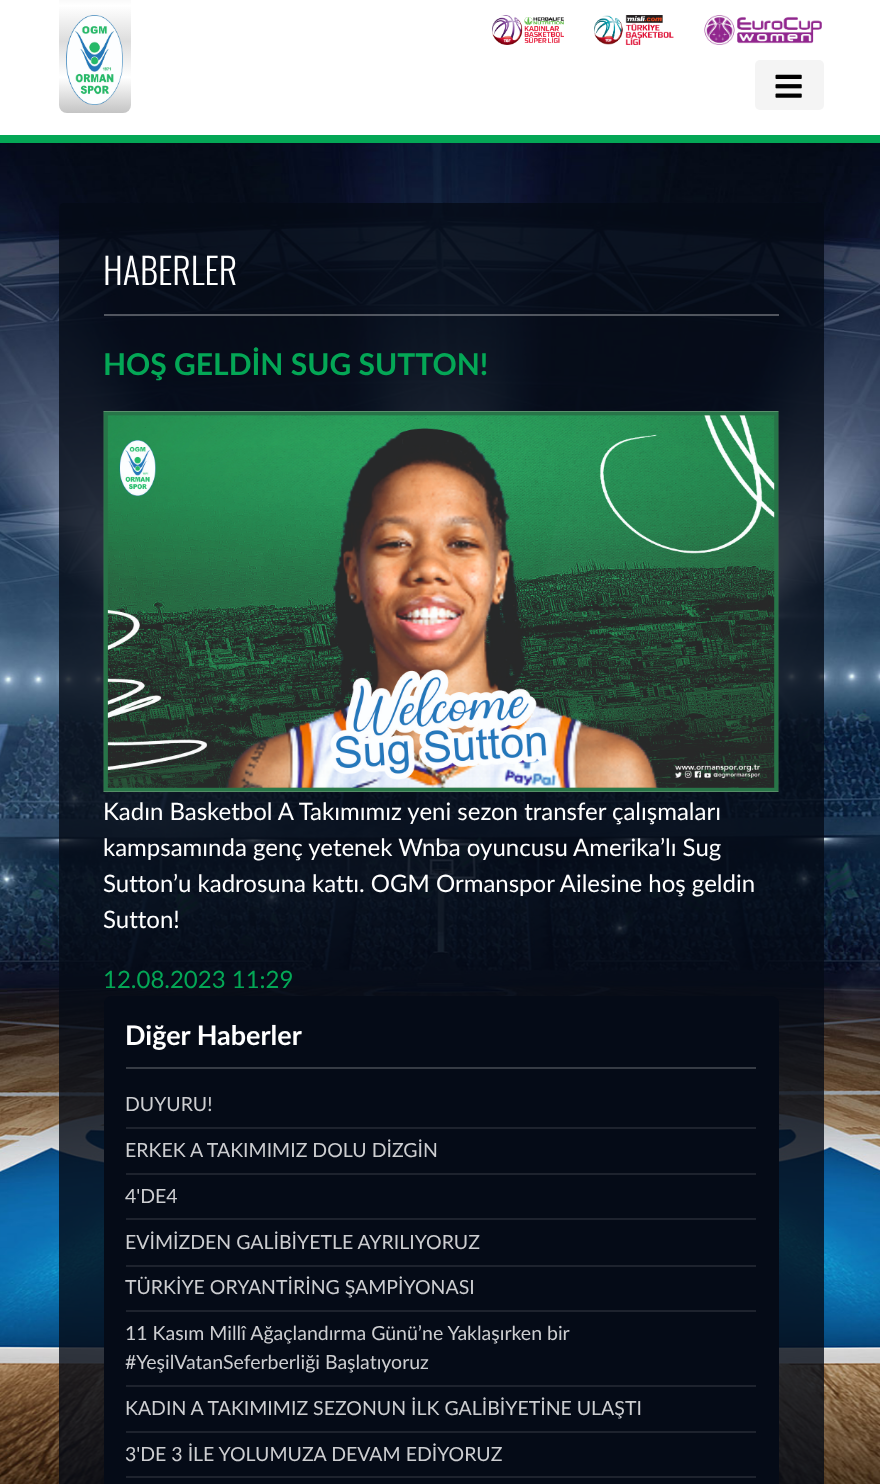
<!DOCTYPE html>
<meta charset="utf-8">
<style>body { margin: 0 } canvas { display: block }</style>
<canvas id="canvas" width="880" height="1484"></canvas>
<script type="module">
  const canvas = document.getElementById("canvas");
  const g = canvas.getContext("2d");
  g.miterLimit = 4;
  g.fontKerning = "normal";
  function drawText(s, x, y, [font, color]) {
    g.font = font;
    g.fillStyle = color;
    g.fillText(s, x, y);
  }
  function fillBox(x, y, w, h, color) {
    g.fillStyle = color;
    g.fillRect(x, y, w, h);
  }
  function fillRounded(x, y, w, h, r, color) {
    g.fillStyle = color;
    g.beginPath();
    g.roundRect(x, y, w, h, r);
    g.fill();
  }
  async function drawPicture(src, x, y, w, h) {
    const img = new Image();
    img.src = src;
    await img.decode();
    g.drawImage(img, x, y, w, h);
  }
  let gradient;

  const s1 = ["300 36px Oswald", "#FFFFFF"];
  const s2 = ["bold 30px Lato", "#04A756"];
  const s3 = ["24px Lato", "#FFFFFF"];
  const s4 = ["24px Lato", "#04A756"];
  const s5 = ["bold 27px Lato", "#FFFFFF"];
  const s6 = ["19.5px Lato", "#CDCED1"];

  fillBox(0, 0, 880, 1484, "#FFFFFF");
  await drawPicture("pic1.png", 0, 143, 880, 1341);
  gradient = g.createLinearGradient(95, 113, 95, -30);
  gradient.addColorStop(0, "#C4C4C4");
  gradient.addColorStop(0.25, "#FFFFFF");
  gradient.addColorStop(0.5, "#DDDDDD");
  gradient.addColorStop(0.75, "#FFFFFF");
  gradient.addColorStop(1, "#DDDDDD");
  g.fillStyle = gradient;
  g.beginPath();
  g.roundRect(59, -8, 72, 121, 8);
  g.fill();
  await drawPicture("pic2.png", 66, 15, 57, 90);
  await drawPicture("pic3.png", 492, 15, 72, 30);
  await drawPicture("pic4.png", 594, 15, 80, 30);
  await drawPicture("pic5.png", 704, 15, 118, 30);
  fillRounded(755, 60, 69, 50, 5, "#F4F4F4");
  await drawPicture("pic6.png", 775, 74, 27, 24);
  fillBox(0, 135, 880, 8, "#04A756");
  fillRounded(59, 203, 765, 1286, 5, "rgba(5, 11, 23, 0.8)");
  fillBox(104, 314, 675, 2, "rgba(255, 255, 255, 0.3)");
  drawText("HABERLER", 103, 285, s1);
  drawText("HOŞ GELDİN SUG SUTTON!", 103, 375, s2);
  await drawPicture("pic7.png", 103, 411, 676, 381);
  drawText("Kadın Basketbol A Takımımız yeni sezon transfer çalışmaları", 103, 820, s3);
  drawText("kampsamında genç yetenek Wnba oyuncusu Amerika’lı Sug", 103, 856, s3);
  drawText("Sutton’u kadrosuna kattı. OGM Ormanspor Ailesine hoş geldin", 103, 892, s3);
  drawText("Sutton!", 103, 928, s3);
  drawText("12.08.2023 11:29", 103, 988, s4);
  fillRounded(104, 996, 675, 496, 8, "#050B17");
  fillBox(126, 1067, 630, 2, "#373C45");
  drawText("Diğer Haberler", 125, 1045, s5);
  fillBox(126, 1127, 630, 2, "#1E232E");
  drawText("DUYURU!", 125, 1111, s6);
  fillBox(126, 1173, 630, 2, "#1E232E");
  drawText("ERKEK A TAKIMIMIZ DOLU DİZGİN", 125, 1157, s6);
  fillBox(126, 1218, 630, 2, "#1E232E");
  drawText("4'DE4", 125, 1203, s6);
  fillBox(126, 1265, 630, 2, "#1E232E");
  drawText("EVİMİZDEN GALİBİYETLE AYRILIYORUZ", 125, 1249, s6);
  fillBox(126, 1310, 630, 2, "#1E232E");
  drawText("TÜRKİYE ORYANTİRİNG ŞAMPİYONASI", 125, 1294, s6);
  fillBox(126, 1385, 630, 2, "#1E232E");
  drawText("11 Kasım Millî Ağaçlandırma Günü’ne Yaklaşırken bir", 125, 1340, s6);
  drawText("#YeşilVatanSeferberliği Başlatıyoruz", 125, 1369, s6);
  fillBox(126, 1431, 630, 2, "#1E232E");
  drawText("KADIN A TAKIMIMIZ SEZONUN İLK GALİBİYETİNE ULAŞTI", 125, 1415, s6);
  fillBox(126, 1476, 630, 2, "#1E232E");
  drawText("3'DE 3 İLE YOLUMUZA DEVAM EDİYORUZ", 125, 1461, s6);
</script>
